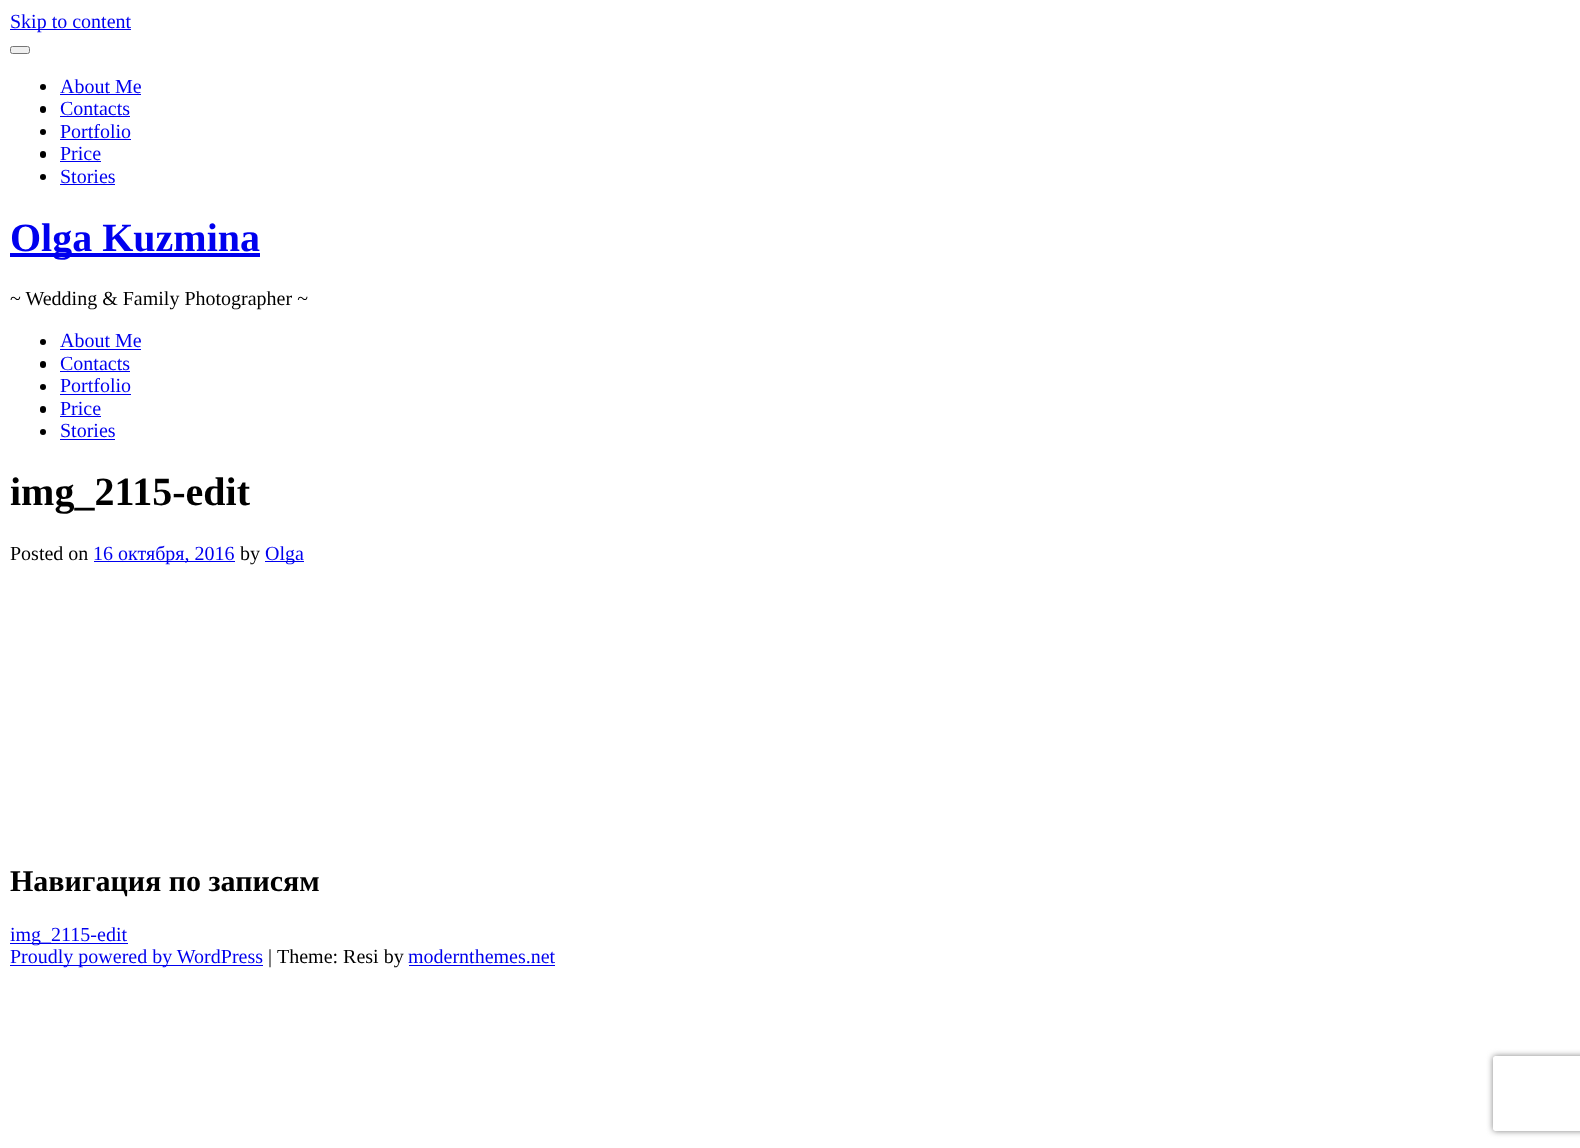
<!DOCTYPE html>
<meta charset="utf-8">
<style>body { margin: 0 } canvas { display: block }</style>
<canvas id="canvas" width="1580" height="1148"></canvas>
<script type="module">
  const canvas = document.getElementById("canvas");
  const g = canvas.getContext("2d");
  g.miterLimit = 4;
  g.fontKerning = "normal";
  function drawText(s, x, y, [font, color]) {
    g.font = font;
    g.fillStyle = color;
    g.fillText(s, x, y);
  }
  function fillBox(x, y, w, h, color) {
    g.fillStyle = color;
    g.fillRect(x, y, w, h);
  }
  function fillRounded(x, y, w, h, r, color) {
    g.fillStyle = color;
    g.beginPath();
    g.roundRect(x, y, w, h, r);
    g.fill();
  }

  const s1 = ["20px Liberation Serif", "#0000EE"];
  const s2 = ["bold 40px Liberation Serif", "#0000EE"];
  const s3 = ["20px Liberation Serif", "#000000"];
  const s4 = ["bold 40px Liberation Serif", "#000000"];
  const s5 = ["bold 30px Liberation Serif", "#000000"];

  fillBox(0, 0, 1580, 1148, "#FFFFFF");
  fillBox(10, 29, 121, 1, "#0000EE");
  drawText("Skip to content", 10, 28, s1);
  g.fillStyle = "#EFEFEF";
  g.beginPath();
  g.roundRect(10.5, 46.5, 19, 7, 2);
  g.fill();
  g.strokeStyle = "#767676";
  g.stroke();
  g.fillStyle = "#000000";
  g.beginPath();
  g.arc(43, 87, 3, 0, Math.PI * 2);
  g.fill();
  drawText("About Me", 60, 93, s1);
  fillBox(60, 94, 81, 1, "#0000EE");
  fillRounded(40, 106, 6, 7, 3, "#000000");
  drawText("Contacts", 60, 115, s1);
  fillBox(60, 116, 70, 1, "#0000EE");
  g.fillStyle = "#000000";
  g.beginPath();
  g.arc(43, 132, 3, 0, Math.PI * 2);
  g.fill();
  drawText("Portfolio", 60, 138, s1);
  fillBox(60, 139, 71, 1, "#0000EE");
  fillRounded(40, 151, 6, 7, 3, "#000000");
  drawText("Price", 60, 160, s1);
  fillBox(60, 161, 41, 1, "#0000EE");
  g.fillStyle = "#000000";
  g.beginPath();
  g.arc(43, 177, 3, 0, Math.PI * 2);
  g.fill();
  drawText("Stories", 60, 183, s1);
  fillBox(60, 184, 55, 1, "#0000EE");
  fillBox(10, 253, 250, 4, "#0000EE");
  drawText("Olga Kuzmina", 10, 251, s2);
  drawText("~ Wedding & Family Photographer ~", 10, 305, s3);
  g.beginPath();
  g.arc(43, 342, 3, 0, Math.PI * 2);
  g.fill();
  drawText("About Me", 60, 347, s1);
  fillBox(60, 349, 81, 1, "#0000EE");
  fillRounded(40, 361, 6, 7, 3, "#000000");
  drawText("Contacts", 60, 370, s1);
  fillBox(60, 371, 70, 1, "#0000EE");
  g.fillStyle = "#000000";
  g.beginPath();
  g.arc(43, 387, 3, 0, Math.PI * 2);
  g.fill();
  drawText("Portfolio", 60, 392, s1);
  fillBox(60, 394, 71, 1, "#0000EE");
  fillRounded(40, 406, 6, 7, 3, "#000000");
  drawText("Price", 60, 415, s1);
  fillBox(60, 416, 41, 1, "#0000EE");
  g.fillStyle = "#000000";
  g.beginPath();
  g.arc(43, 432, 3, 0, Math.PI * 2);
  g.fill();
  drawText("Stories", 60, 437, s1);
  fillBox(60, 439, 55, 1, "#0000EE");
  drawText("img_2115-edit", 10, 505, s4);
  drawText("Posted on", 10, 560, s3);
  fillBox(94, 561, 141, 1, "#0000EE");
  drawText("16 октября, 2016", 93, 560, s1);
  drawText("by", 240, 560, s3);
  fillBox(265, 561, 39, 1, "#0000EE");
  drawText("Olga", 265, 560, s1);
  drawText("Навигация по записям", 10, 891, s5);
  fillBox(10, 943, 118, 1, "#0000EE");
  drawText("img_2115-edit", 10, 941, s1);
  fillBox(10, 965, 253, 1, "#0000EE");
  drawText("Proudly powered by WordPress", 10, 963, s1);
  drawText("|", 268, 963, s3);
  drawText("Theme: Resi by", 277, 963, s3);
  drawText("modernthemes.net", 408, 963, s1);
  fillBox(409, 965, 146, 1, "#0000EE");
  g.save();
  g.beginPath();
  g.moveTo(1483, 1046);
  g.lineTo(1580, 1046);
  g.lineTo(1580, 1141);
  g.lineTo(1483, 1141);
  g.closePath();
  g.moveTo(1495.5, 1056);
  g.lineTo(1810.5, 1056);
  g.bezierCurveTo(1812, 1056, 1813, 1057, 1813, 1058.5);
  g.lineTo(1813, 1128.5);
  g.bezierCurveTo(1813, 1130, 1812, 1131, 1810.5, 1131);
  g.lineTo(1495.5, 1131);
  g.bezierCurveTo(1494, 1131, 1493, 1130, 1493, 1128.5);
  g.lineTo(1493, 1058.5);
  g.bezierCurveTo(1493, 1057, 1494, 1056, 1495.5, 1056);
  g.closePath();
  g.clip("evenodd");
  g.fillStyle = "#808080";
  g.filter = "blur(3px)";
  g.beginPath();
  g.roundRect(1493, 1056, 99, 75, 2.5);
  g.fill();
  g.filter = "none";
  g.restore();
</script>
